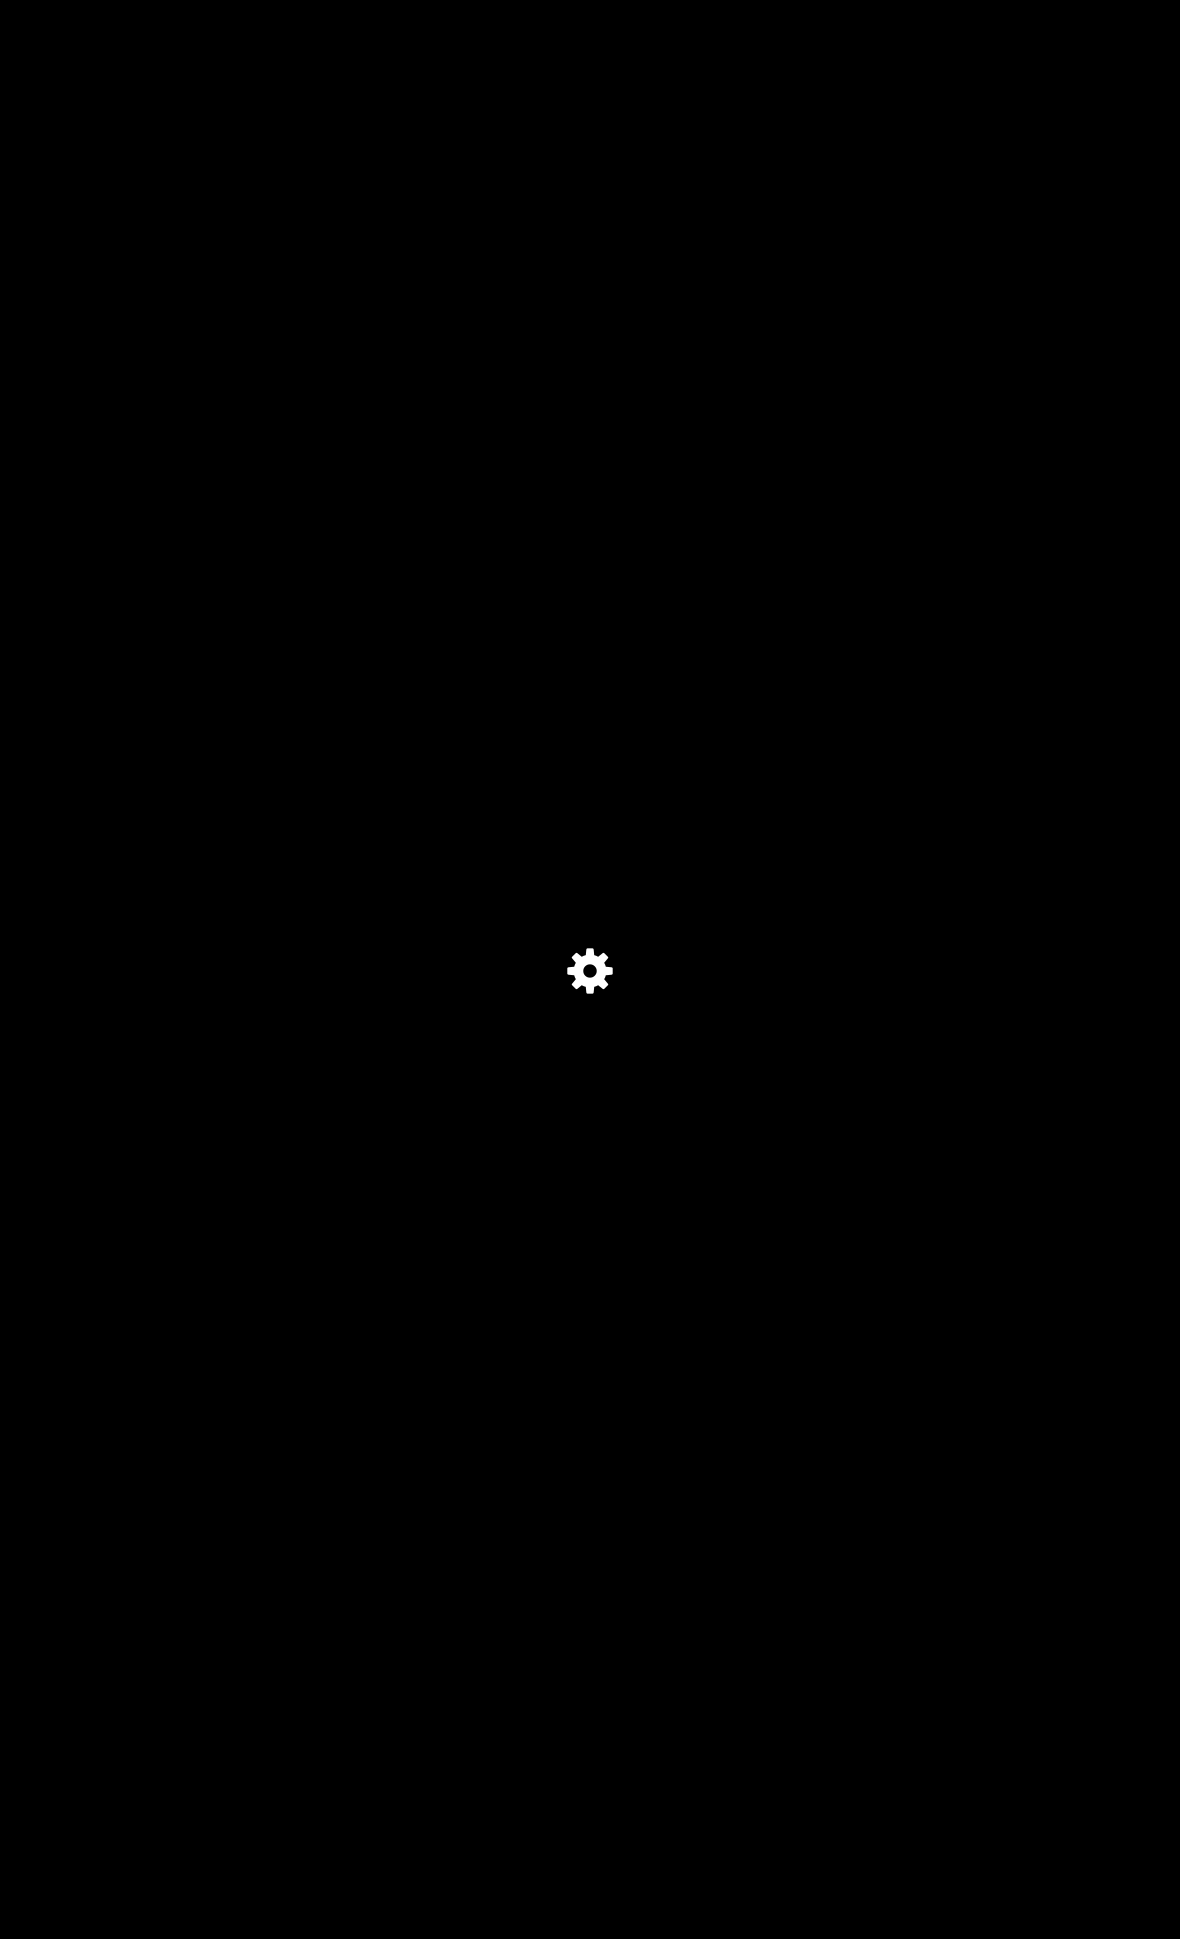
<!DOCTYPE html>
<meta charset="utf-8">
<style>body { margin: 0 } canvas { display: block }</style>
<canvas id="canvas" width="1180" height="1939"></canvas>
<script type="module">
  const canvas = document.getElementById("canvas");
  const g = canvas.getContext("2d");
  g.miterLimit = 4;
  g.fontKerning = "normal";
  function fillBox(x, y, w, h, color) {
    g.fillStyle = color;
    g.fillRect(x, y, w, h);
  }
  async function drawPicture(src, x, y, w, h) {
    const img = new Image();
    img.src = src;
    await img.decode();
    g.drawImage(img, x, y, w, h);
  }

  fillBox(0, 0, 1180, 1939, "#000000");
  await drawPicture("pic1.png", 567, 948, 46, 46);
</script>
